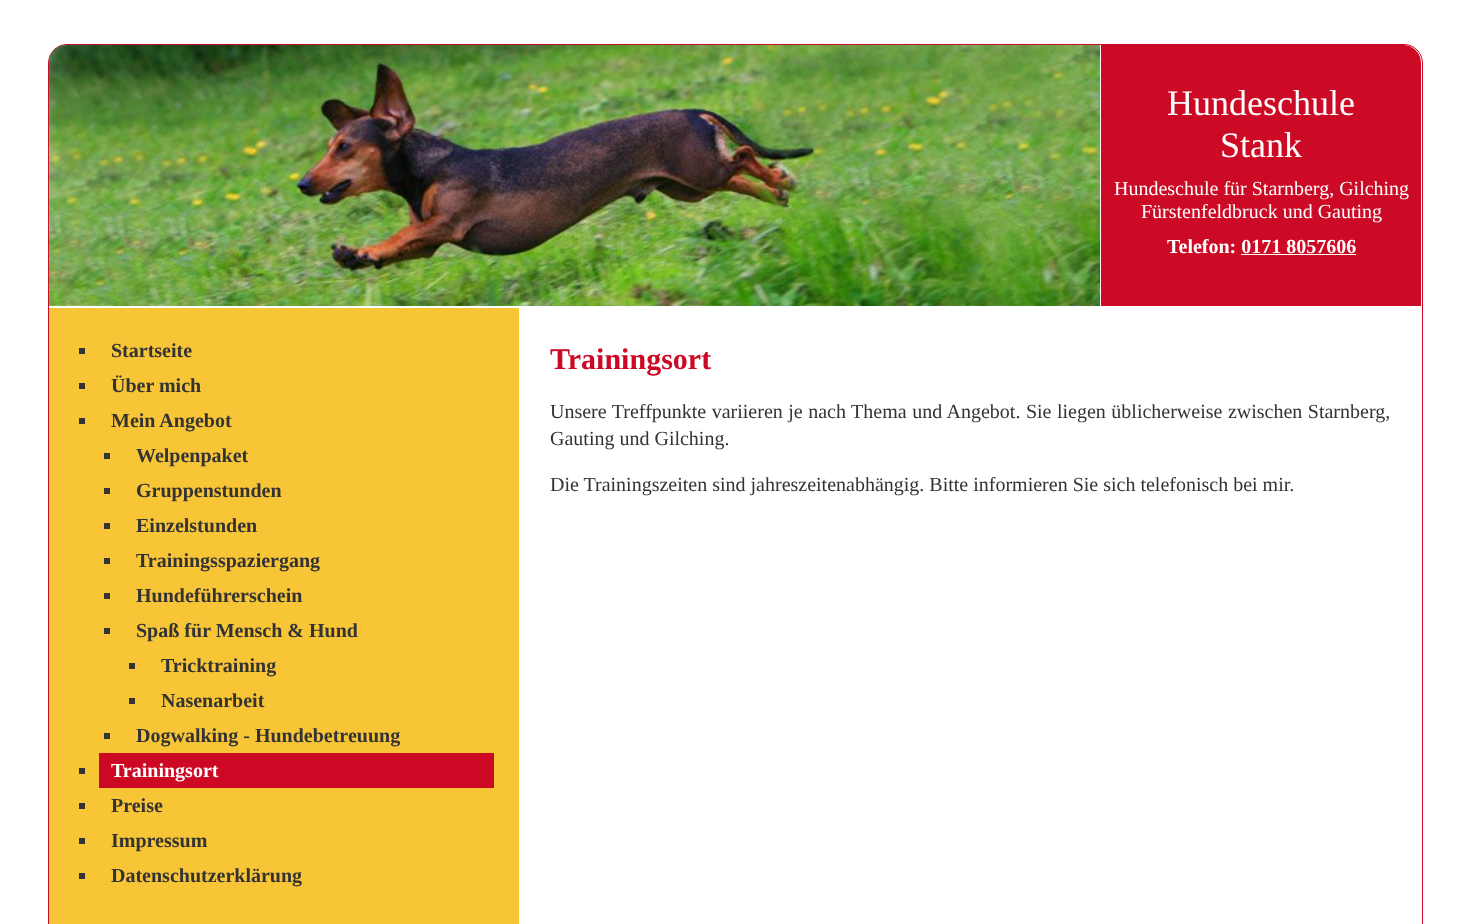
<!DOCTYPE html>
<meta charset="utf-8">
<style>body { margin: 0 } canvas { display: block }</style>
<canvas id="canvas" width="1469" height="924"></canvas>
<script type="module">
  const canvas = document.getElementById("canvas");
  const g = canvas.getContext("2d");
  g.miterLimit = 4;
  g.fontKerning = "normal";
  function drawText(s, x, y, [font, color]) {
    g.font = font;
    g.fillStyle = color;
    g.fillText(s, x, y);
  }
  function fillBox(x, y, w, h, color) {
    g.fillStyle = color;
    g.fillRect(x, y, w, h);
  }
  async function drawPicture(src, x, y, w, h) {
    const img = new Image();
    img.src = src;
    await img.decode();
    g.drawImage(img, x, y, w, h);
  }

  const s1 = ["36px Liberation Serif", "#FFFFFF"];
  const s2 = ["20px Liberation Serif", "#FFFFFF"];
  const s3 = ["bold 20px Liberation Serif", "#FFFFFF"];
  const s4 = ["bold 20px Liberation Serif", "#333333"];
  const s5 = ["bold 30px Liberation Serif", "#CC0824"];
  const s6 = ["20px Liberation Serif", "#333333"];

  fillBox(0, 0, 1469, 924, "#FFFFFF");
  g.beginPath();
  g.roundRect(48.5, 44.5, 1374, 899, 18.5);
  g.strokeStyle = "#CC0A25";
  g.stroke();
  await drawPicture("pic1.png", 48, 45, 1052, 261);
  g.fillStyle = "#CC0A25";
  g.beginPath();
  g.roundRect(1100, 45, 321, 261, [0, 18, 0, 0]);
  g.fill();
  fillBox(1100, 45, 1, 261, "#FFFFFF");
  drawText("Hundeschule", 1167, 115, s1);
  drawText("Stank", 1220, 157, s1);
  drawText("Hundeschule für Starnberg, Gilching", 1114, 195, s2);
  drawText("Fürstenfeldbruck und Gauting", 1141, 218, s2);
  drawText("Telefon: 0171 8057606", 1167, 253, s3);
  fillBox(1241, 254, 115, 1, "#FFFFFF");
  fillBox(49, 308, 470, 616, "#F8C537");
  fillBox(79, 348, 6, 6, "#333333");
  drawText("Startseite", 111, 357, s4);
  fillBox(79, 383, 6, 6, "#333333");
  drawText("Über mich", 111, 392, s4);
  fillBox(79, 418, 6, 6, "#333333");
  drawText("Mein Angebot", 111, 427, s4);
  fillBox(104, 453, 6, 6, "#333333");
  drawText("Welpenpaket", 136, 462, s4);
  fillBox(104, 488, 6, 6, "#333333");
  drawText("Gruppenstunden", 136, 497, s4);
  fillBox(104, 523, 6, 6, "#333333");
  drawText("Einzelstunden", 136, 532, s4);
  fillBox(104, 558, 6, 6, "#333333");
  drawText("Trainingsspaziergang", 136, 567, s4);
  fillBox(104, 593, 6, 6, "#333333");
  drawText("Hundeführerschein", 136, 602, s4);
  fillBox(104, 628, 6, 6, "#333333");
  drawText("Spaß für Mensch & Hund", 136, 637, s4);
  fillBox(129, 663, 6, 6, "#333333");
  drawText("Tricktraining", 161, 672, s4);
  fillBox(129, 698, 6, 6, "#333333");
  drawText("Nasenarbeit", 161, 707, s4);
  fillBox(104, 733, 6, 6, "#333333");
  drawText("Dogwalking - Hundebetreuung", 136, 742, s4);
  fillBox(79, 768, 6, 6, "#333333");
  fillBox(99, 753, 395, 35, "#CC0824");
  drawText("Trainingsort", 111, 777, s3);
  fillBox(79, 803, 6, 6, "#333333");
  drawText("Preise", 111, 812, s4);
  fillBox(79, 838, 6, 6, "#333333");
  drawText("Impressum", 111, 847, s4);
  fillBox(79, 873, 6, 6, "#333333");
  drawText("Datenschutzerklärung", 111, 882, s4);
  drawText("Trainingsort", 550, 369, s5);
  g.wordSpacing = "0.5px";
  drawText("Unsere Treffpunkte variieren je nach Thema und Angebot. Sie liegen üblicherweise zwischen Starnberg,", 550, 418, s6);
  g.wordSpacing = "0px";
  drawText("Gauting und Gilching.", 550, 445, s6);
  drawText("Die Trainingszeiten sind jahreszeitenabhängig. Bitte informieren Sie sich telefonisch bei mir.", 550, 491, s6);
</script>
